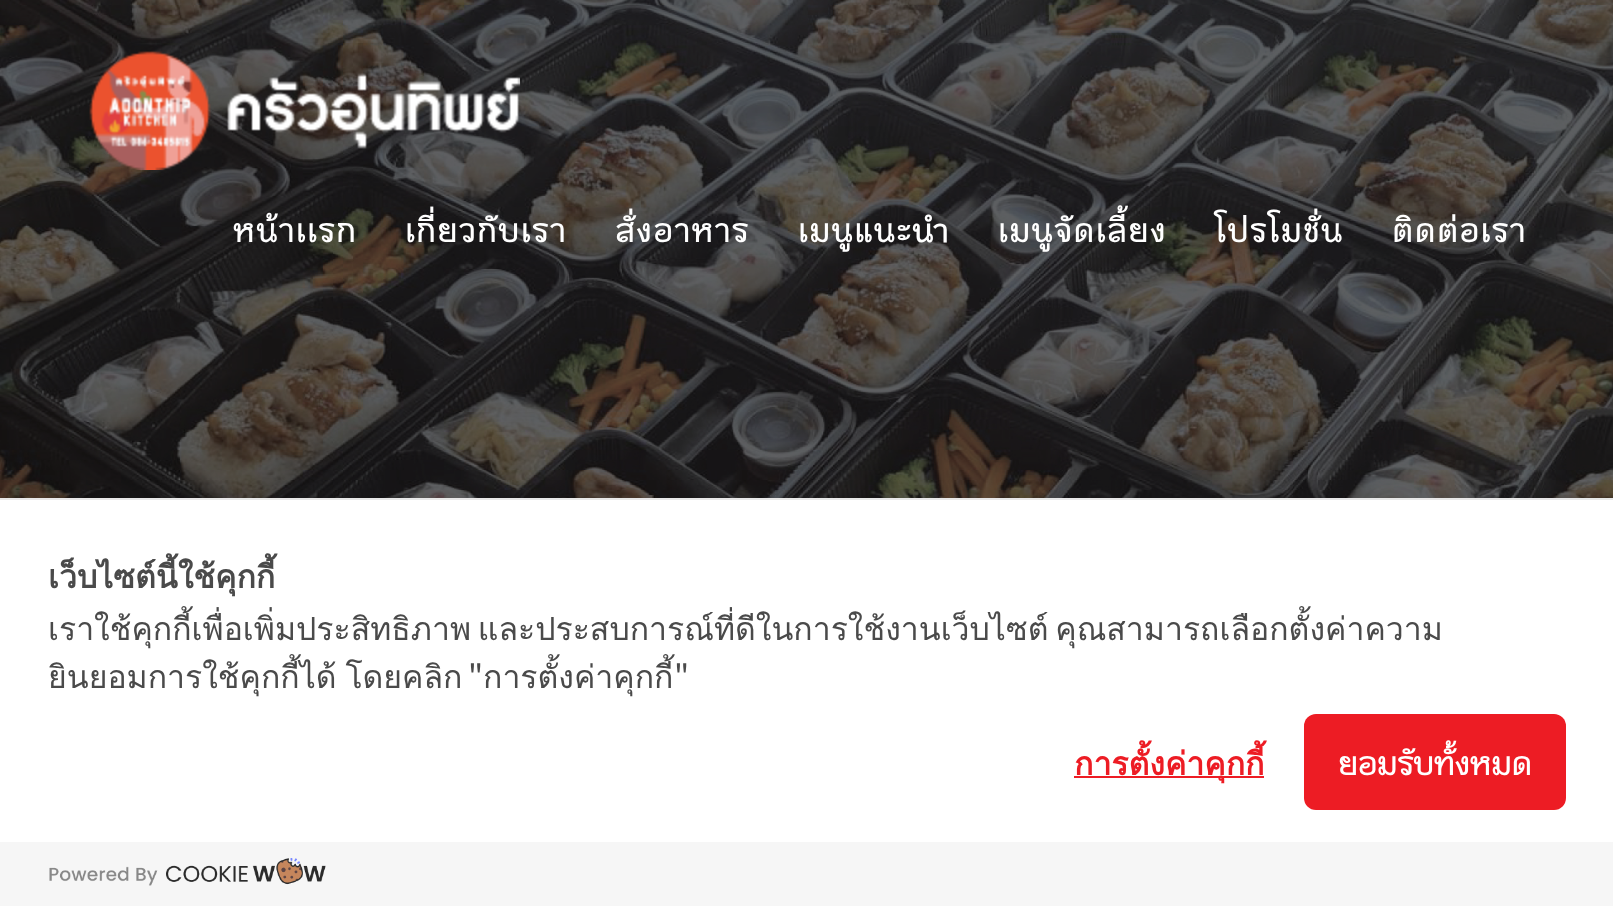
<!DOCTYPE html>
<meta charset="utf-8">
<style>body { margin: 0 } canvas { display: block }</style>
<canvas id="canvas" width="1613" height="906"></canvas>
<script type="module">
  const canvas = document.getElementById("canvas");
  const g = canvas.getContext("2d");
  g.miterLimit = 4;
  g.fontKerning = "normal";
  function drawText(s, x, y, [font, color]) {
    g.font = font;
    g.fillStyle = color;
    g.fillText(s, x, y);
  }
  function fillBox(x, y, w, h, color) {
    g.fillStyle = color;
    g.fillRect(x, y, w, h);
  }
  function fillRounded(x, y, w, h, r, color) {
    g.fillStyle = color;
    g.beginPath();
    g.roundRect(x, y, w, h, r);
    g.fill();
  }
  async function drawPicture(src, x, y, w, h) {
    const img = new Image();
    img.src = src;
    await img.decode();
    g.drawImage(img, x, y, w, h);
  }

  const s1 = ["bold 32px KoHo", "#FFFFFF"];
  const s2 = ["bold 32px Loma", "#4A4A4A"];
  const s3 = ["32px Loma", "#4A4A4A"];
  const s4 = ["32px Noto Sans JP", "#4A4A4A"];
  const s5 = ["bold 32px Loma", "#ED1C24"];

  fillBox(0, 0, 1613, 906, "#FFFFFF");
  await drawPicture("pic1.png", 0, 0, 1613, 498);
  await drawPicture("pic2.png", 89, 51, 431, 119);
  g.letterSpacing = "2px";
  drawText("หน้าเเรก", 233, 242, s1);
  drawText("เกี่ยวกับเรา", 405, 242, s1);
  drawText("สั่งอาหาร", 615, 242, s1);
  drawText("เมนูแนะนำ", 798, 242, s1);
  drawText("เมนูจัดเลี้ยง", 998, 242, s1);
  drawText("โปรโมชั่น", 1215, 242, s1);
  drawText("ติดต่อเรา", 1392, 242, s1);
  fillBox(0, 498, 1613, 2, "#E8E8E8");
  g.letterSpacing = "0px";
  drawText("เว็บไซต์นี้ใช้คุกกี้", 48, 588, s2);
  g.wordSpacing = "-4px";
  drawText("เราใช้คุกกี้เพื่อเพิ่มประสิทธิภาพ และประสบการณ์ที่ดีในการใช้งานเว็บไซต์ คุณสามารถเลือกตั้งค่าความ", 48, 640, s3);
  g.wordSpacing = "-2px";
  drawText("ยินยอมการใช้คุกกี้ได้ โดยคลิก", 48, 688, s3);
  g.wordSpacing = "0px";
  drawText("\"", 468, 688, s4);
  drawText("การตั้งค่าคุกกี้", 483, 688, s3);
  drawText("\"", 674, 688, s4);
  fillBox(1074, 776, 190, 2, "#ED1C24");
  drawText("การตั้งค่าคุกกี้", 1074, 775, s5);
  fillRounded(1304, 714, 262, 96, 12, "#ED1C24");
  drawText("ยอมรับทั้งหมด", 1338, 775, s1);
  fillBox(0, 842, 1613, 64, "#F6F6F6");
  await drawPicture("pic3.png", 49, 858, 277, 28);
</script>
